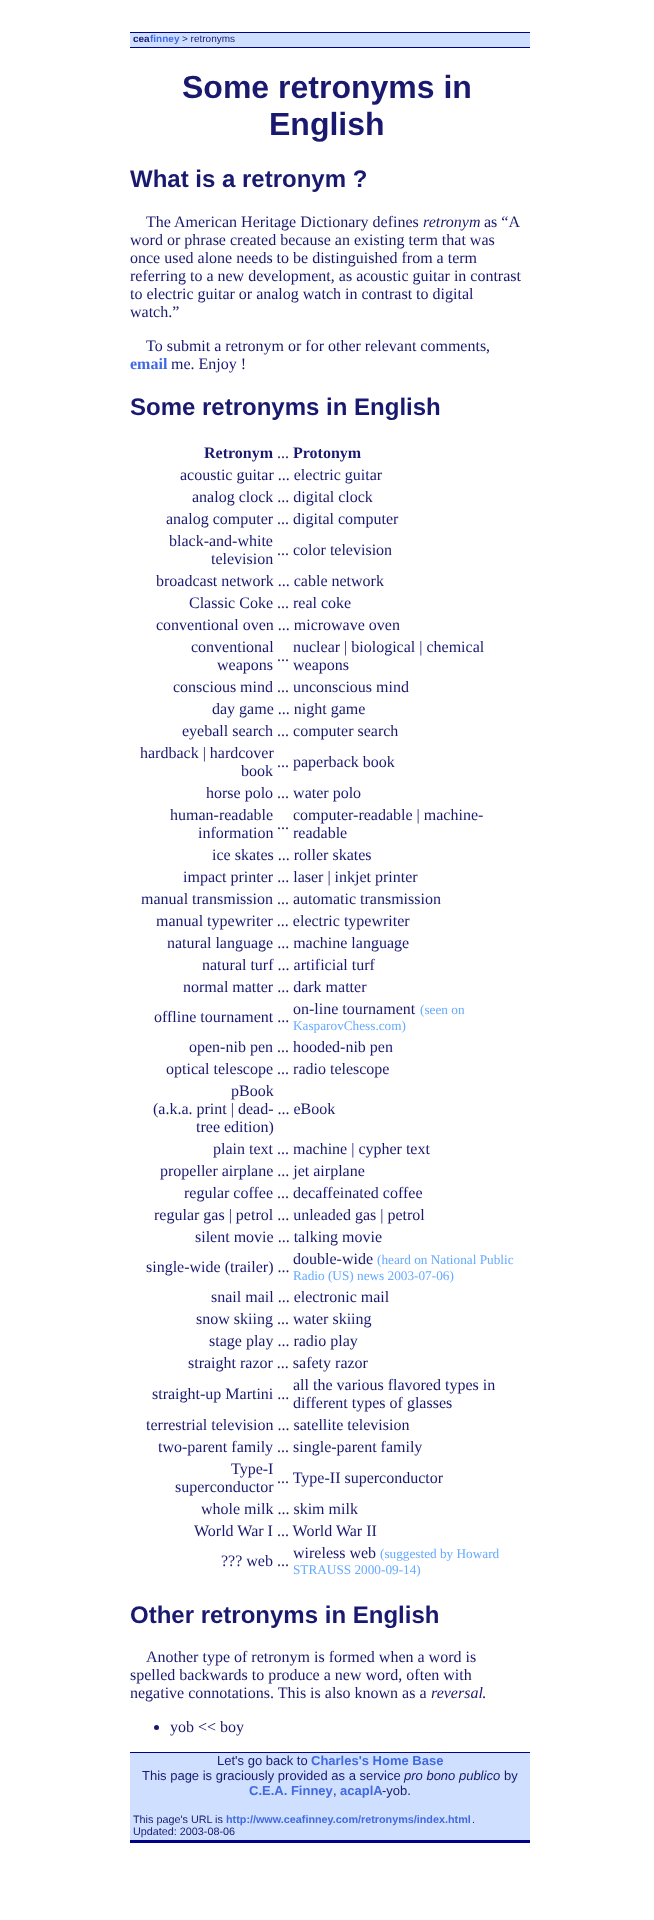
<!DOCTYPE html>
<meta charset="utf-8">
<style>body { margin: 0 } canvas { display: block }</style>
<canvas id="canvas" width="654" height="1920"></canvas>
<script type="module">
  const canvas = document.getElementById("canvas");
  const g = canvas.getContext("2d");
  g.miterLimit = 4;
  g.fontKerning = "normal";
  function drawText(s, x, y, [font, color]) {
    g.font = font;
    g.fillStyle = color;
    g.fillText(s, x, y);
  }
  function fillBox(x, y, w, h, color) {
    g.fillStyle = color;
    g.fillRect(x, y, w, h);
  }

  const s1 = ["bold 10px Liberation Sans", "#191970"];
  const s2 = ["bold 10px Liberation Sans", "#4169E1"];
  const s3 = ["10px Liberation Sans", "#191970"];
  const s4 = ["bold 32px Liberation Sans", "#191970"];
  const s5 = ["bold 24px Liberation Sans", "#191970"];
  const s6 = ["16px Liberation Serif", "#191970"];
  const s7 = ["italic 16px Liberation Serif", "#191970"];
  const s8 = ["bold 16px Liberation Serif", "#4169E1"];
  const s9 = ["bold 16px Liberation Serif", "#191970"];
  const s10 = ["13.25px Liberation Serif", "#66AAFF"];
  const s11 = ["13px Liberation Sans", "#191970"];
  const s12 = ["bold 13px Liberation Sans", "#4169E1"];
  const s13 = ["italic 13px Liberation Sans", "#191970"];
  const s14 = ["10.8px Liberation Sans", "#191970"];
  const s15 = ["bold 10.8px Liberation Sans", "#4169E1"];

  fillBox(0, 0, 654, 1920, "#FFFFFF");
  fillBox(130, 33, 400, 14, "#CFDFFF");
  fillBox(130, 32, 400, 1, "#000088");
  fillBox(130, 47, 400, 1, "#000088");
  drawText("cea", 133, 42, s1);
  drawText("finney", 150, 42, s2);
  drawText("> retronyms", 182, 42, s3);
  drawText("Some retronyms in", 182, 98, s4);
  drawText("English", 269, 135, s4);
  drawText("What is a retronym ?", 130, 187, s5);
  drawText("The American Heritage Dictionary defines", 146, 227, s6);
  drawText("retronym", 423, 227, s7);
  drawText("as “A", 484, 227, s6);
  drawText("word or phrase created because an existing term that was", 130, 245, s6);
  drawText("once used alone needs to be distinguished from a term", 130, 263, s6);
  drawText("referring to a new development, as acoustic guitar in contrast", 130, 281, s6);
  drawText("to electric guitar or analog watch in contrast to digital", 130, 299, s6);
  drawText("watch.”", 130, 317, s6);
  drawText("To submit a retronym or for other relevant comments,", 146, 351, s6);
  drawText("email", 130, 369, s8);
  drawText("me. Enjoy !", 171, 369, s6);
  drawText("Some retronyms in English", 130, 415, s5);
  drawText("Retronym", 204, 458, s9);
  drawText("...", 277, 458, s6);
  drawText("Protonym", 293, 458, s9);
  drawText("acoustic guitar ... electric guitar", 180, 480, s6);
  drawText("analog clock ... digital clock", 192, 502, s6);
  drawText("analog computer ... digital computer", 166, 524, s6);
  drawText("black-and-white", 169, 546, s6);
  drawText("television", 211, 564, s6);
  drawText("... color television", 277, 555, s6);
  drawText("broadcast network ... cable network", 156, 586, s6);
  drawText("Classic Coke ... real coke", 189, 608, s6);
  drawText("conventional oven ... microwave oven", 156, 630, s6);
  drawText("conventional", 191, 652, s6);
  drawText("weapons", 217, 670, s6);
  drawText("...", 277, 661, s6);
  drawText("nuclear | biological | chemical", 293, 652, s6);
  drawText("weapons", 293, 670, s6);
  drawText("conscious mind ... unconscious mind", 173, 692, s6);
  drawText("day game ... night game", 212, 714, s6);
  drawText("eyeball search ... computer search", 182, 736, s6);
  drawText("hardback | hardcover", 140, 758, s6);
  drawText("book", 241, 776, s6);
  drawText("... paperback book", 277, 767, s6);
  drawText("horse polo ... water polo", 206, 798, s6);
  drawText("human-readable", 170, 820, s6);
  drawText("information", 198, 838, s6);
  drawText("...", 277, 829, s6);
  drawText("computer-readable | machine-", 293, 820, s6);
  drawText("readable", 293, 838, s6);
  drawText("ice skates ... roller skates", 212, 860, s6);
  drawText("impact printer ... laser | inkjet printer", 183, 882, s6);
  drawText("manual transmission ... automatic transmission", 141, 904, s6);
  drawText("manual typewriter ... electric typewriter", 156, 926, s6);
  drawText("natural language ... machine language", 167, 948, s6);
  drawText("natural turf ... artificial turf", 202, 970, s6);
  drawText("normal matter ... dark matter", 183, 992, s6);
  drawText("offline tournament ...", 154, 1022, s6);
  drawText("on-line tournament", 293, 1014, s6);
  drawText("(seen on", 420, 1014, s10);
  drawText("KasparovChess.com)", 293, 1030, s10);
  drawText("open-nib pen ... hooded-nib pen", 189, 1052, s6);
  drawText("optical telescope ... radio telescope", 166, 1074, s6);
  drawText("pBook", 231, 1096, s6);
  drawText("(a.k.a. print | dead- ... eBook", 153, 1114, s6);
  drawText("tree edition)", 196, 1132, s6);
  drawText("plain text ... machine | cypher text", 213, 1154, s6);
  drawText("propeller airplane ... jet airplane", 160, 1176, s6);
  drawText("regular coffee ... decaffeinated coffee", 184, 1198, s6);
  drawText("regular gas | petrol ... unleaded gas | petrol", 154, 1220, s6);
  drawText("silent movie ... talking movie", 195, 1242, s6);
  drawText("single-wide (trailer) ...", 146, 1272, s6);
  drawText("double-wide", 293, 1264, s6);
  drawText("(heard on National Public", 377, 1264, s10);
  drawText("Radio (US) news 2003-07-06)", 293, 1280, s10);
  drawText("snail mail ... electronic mail", 211, 1302, s6);
  drawText("snow skiing ... water skiing", 196, 1324, s6);
  drawText("stage play ... radio play", 209, 1346, s6);
  drawText("straight razor ... safety razor", 188, 1368, s6);
  drawText("straight-up Martini ...", 152, 1399, s6);
  drawText("all the various flavored types in", 293, 1390, s6);
  drawText("different types of glasses", 293, 1408, s6);
  drawText("terrestrial television ... satellite television", 146, 1430, s6);
  drawText("two-parent family ... single-parent family", 158, 1452, s6);
  drawText("Type-I", 231, 1474, s6);
  drawText("superconductor", 175, 1492, s6);
  drawText("... Type-II superconductor", 277, 1483, s6);
  drawText("whole milk ... skim milk", 201, 1514, s6);
  drawText("World War I ... World War II", 194, 1536, s6);
  drawText("??? web ...", 221, 1566, s6);
  drawText("wireless web", 293, 1558, s6);
  drawText("(suggested by Howard", 380, 1558, s10);
  drawText("STRAUSS 2000-09-14)", 293, 1574, s10);
  drawText("Other retronyms in English", 130, 1623, s5);
  drawText("Another type of retronym is formed when a word is", 146, 1662, s6);
  drawText("spelled backwards to produce a new word, often with", 130, 1680, s6);
  drawText("negative connotations. This is also known as a", 130, 1698, s6);
  drawText("reversal", 431, 1698, s7);
  drawText(".", 482, 1698, s6);
  g.beginPath();
  g.arc(156.5, 1727.5, 2.5, 0, Math.PI * 2);
  g.fill();
  drawText("yob << boy", 170, 1732, s6);
  fillBox(130, 1753, 400, 87, "#CFDFFF");
  fillBox(130, 1752, 400, 1, "#000088");
  fillBox(130, 1840, 400, 3, "#000088");
  drawText("Let's go back to", 217, 1765, s11);
  drawText("Charles's Home Base", 311, 1765, s12);
  drawText("This page is graciously provided as a service", 142, 1780, s11);
  drawText("pro bono publico", 404, 1780, s13);
  drawText("by", 504, 1780, s11);
  drawText("C.E.A. Finney", 249, 1795, s12);
  drawText(",", 333, 1795, s11);
  drawText("acaplA", 340, 1795, s12);
  drawText("-yob.", 382, 1795, s11);
  drawText("This page's URL is", 133, 1823, s14);
  drawText("http://www.ceafinney.com/retronyms/index.html", 226, 1823, s15);
  drawText(".", 472, 1823, s14);
  drawText("Updated: 2003-08-06", 133, 1835, s14);
</script>
